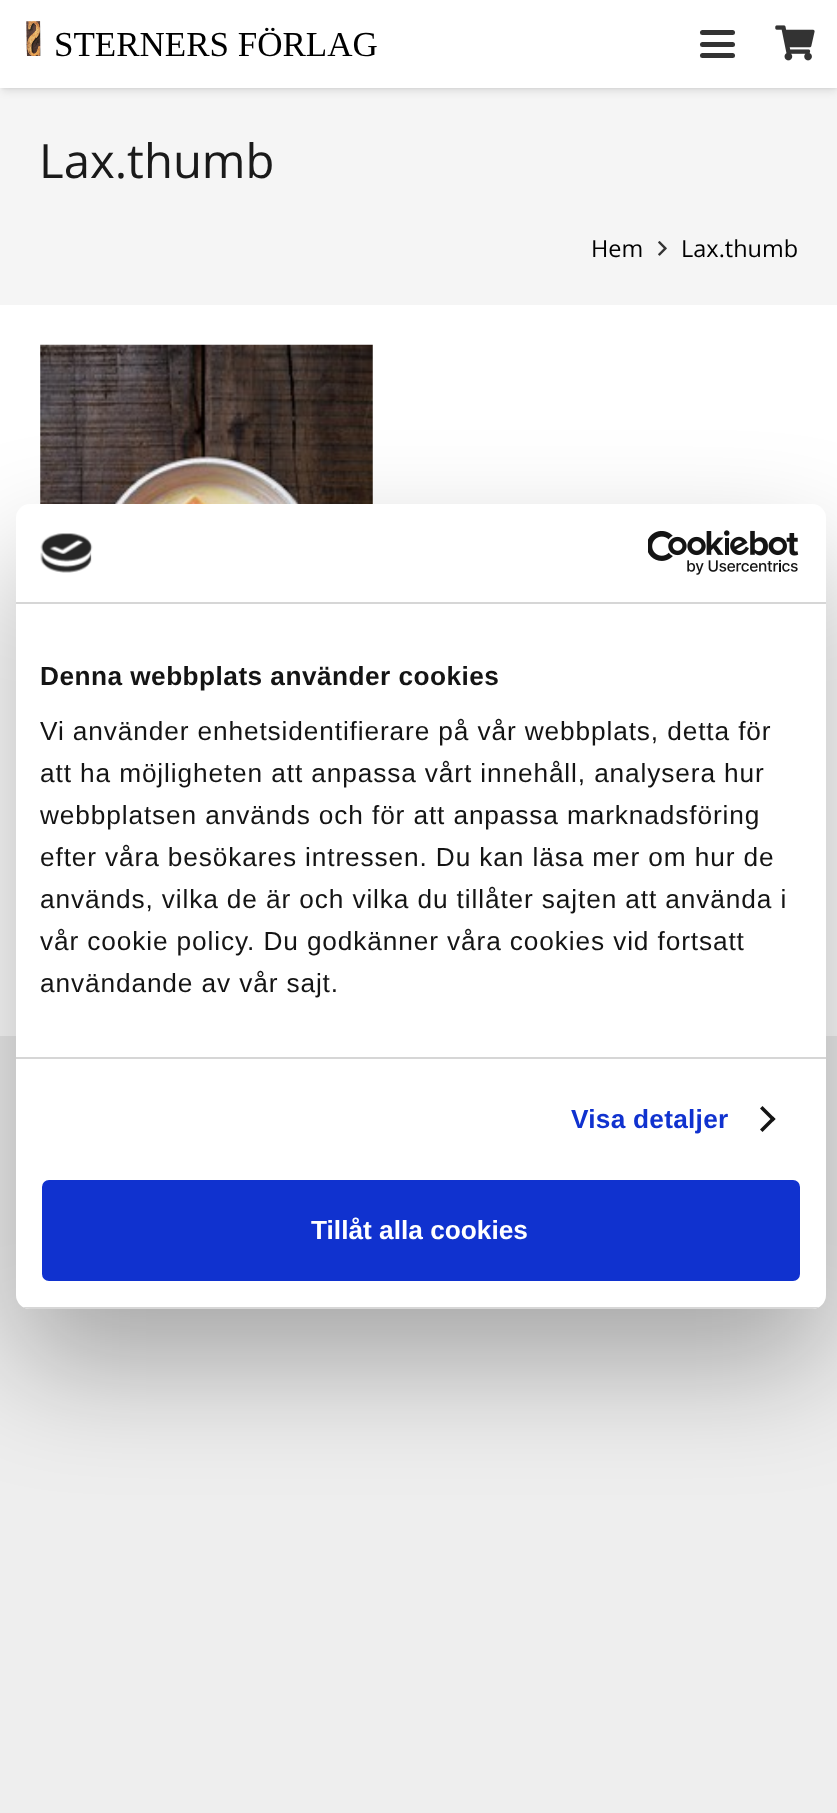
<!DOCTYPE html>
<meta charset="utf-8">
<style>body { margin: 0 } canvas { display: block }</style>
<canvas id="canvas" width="837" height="1813"></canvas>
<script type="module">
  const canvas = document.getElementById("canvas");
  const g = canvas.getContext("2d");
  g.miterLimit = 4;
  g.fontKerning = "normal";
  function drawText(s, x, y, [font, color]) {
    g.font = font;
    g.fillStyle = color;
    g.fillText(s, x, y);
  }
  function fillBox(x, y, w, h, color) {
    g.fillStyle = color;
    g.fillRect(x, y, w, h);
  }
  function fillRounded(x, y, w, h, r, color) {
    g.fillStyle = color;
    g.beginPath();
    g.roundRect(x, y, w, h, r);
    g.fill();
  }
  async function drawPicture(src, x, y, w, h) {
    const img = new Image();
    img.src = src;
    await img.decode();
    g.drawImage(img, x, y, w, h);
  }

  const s1 = ["35px Liberation Serif", "#000000"];
  const s2 = ["47.25px Open Sans", "#1A1A1A"];
  const s3 = ["23.5px Open Sans", "#000000"];
  const s4 = ["bold 26.25px Liberation Sans", "#141414"];
  const s5 = ["26.25px Liberation Sans", "#141414"];
  const s6 = ["bold 26.25px Liberation Sans", "#1032CF"];
  const s7 = ["bold 26.25px Liberation Sans", "#FFFFFF"];

  fillBox(0, 0, 837, 1813, "#EEEEEE");
  fillBox(0, 305, 837, 731, "#FFFFFF");
  fillBox(0, 88, 837, 217, "#F5F5F5");
  g.fillStyle = "rgba(0, 0, 0, 0.05)";
  g.filter = "blur(1px)";
  g.beginPath();
  g.rect(2, 5, 835, 84);
  g.fill();
  g.filter = "none";
  g.fillStyle = "rgba(0, 0, 0, 0.1)";
  g.filter = "blur(4.5px)";
  g.beginPath();
  g.rect(2, 7, 835, 84);
  g.fill();
  g.filter = "none";
  fillBox(0, 0, 837, 88, "#FFFFFF");
  await drawPicture("pic1.png", 26, 21, 15, 35);
  drawText("STERNERS FÖRLAG", 54, 56, s1);
  fillRounded(700, 42, 35, 5, 2.5, "#333333");
  fillRounded(700, 30, 35, 5, 2.5, "#333333");
  fillRounded(700, 53, 35, 5, 2.5, "#333333");
  await drawPicture("pic2.png", 775, 25, 40, 36);
  drawText("Lax.thumb", 39, 178, s2);
  drawText("Hem", 591, 257, s3);
  await drawPicture("pic3.png", 658, 241, 9, 15);
  drawText("Lax.thumb", 681, 257, s3);
  await drawPicture("pic4.png", 40, 344, 333, 160);
  g.fillStyle = "rgba(0, 0, 0, 0.3)";
  g.filter = "blur(59.5px)";
  g.beginPath();
  g.roundRect(16, 560, 810, 805, 14);
  g.fill();
  g.filter = "none";
  fillRounded(16, 504, 810, 805, 14, "#FFFFFF");
  fillBox(16, 602, 810, 2, "#D6D6D6");
  await drawPicture("pic5.png", 40, 533, 53, 40);
  await drawPicture("pic6.png", 648, 530, 151, 45);
  fillBox(16, 1057, 810, 2, "#D6D6D6");
  g.letterSpacing = "0.45px";
  drawText("Denna webbplats använder cookies", 40, 685, s4);
  g.letterSpacing = "0.88px";
  drawText("Vi använder enhetsidentifierare på vår webbplats, detta för", 40, 740, s5);
  drawText("att ha möjligheten att anpassa vårt innehåll, analysera hur", 40, 782, s5);
  drawText("webbplatsen används och för att anpassa marknadsföring", 40, 824, s5);
  drawText("efter våra besökares intressen. Du kan läsa mer om hur de", 40, 866, s5);
  drawText("används, vilka de är och vilka du tillåter sajten att använda i", 40, 908, s5);
  drawText("vår cookie policy. Du godkänner våra cookies vid fortsatt", 40, 950, s5);
  drawText("användande av vår sajt.", 40, 992, s5);
  g.letterSpacing = "0.25px";
  drawText("Visa detaljer", 571, 1128, s6);
  g.fillStyle = "#141414";
  g.beginPath();
  g.moveTo(762.5, 1106);
  g.lineTo(775.5, 1119);
  g.lineTo(773, 1121.5);
  g.lineTo(760, 1108.5);
  g.closePath();
  g.fill();
  g.beginPath();
  g.moveTo(773, 1116.5);
  g.lineTo(775.5, 1119);
  g.lineTo(762.5, 1132);
  g.lineTo(760, 1129.5);
  g.closePath();
  g.fill();
  g.save();
  g.beginPath();
  g.roundRect(16, 504, 810, 805, 14);
  g.clip();
  fillBox(16, 1307, 810, 2, "#D6D6D6");
  g.restore();
  g.fillStyle = "#1032CF";
  g.beginPath();
  g.roundRect(44, 1182, 754, 97, 5);
  g.fill();
  g.strokeStyle = "#1032CF";
  g.lineWidth = 4;
  g.stroke();
  g.letterSpacing = "0px";
  drawText("Tillåt alla cookies", 311, 1239, s7);
</script>
